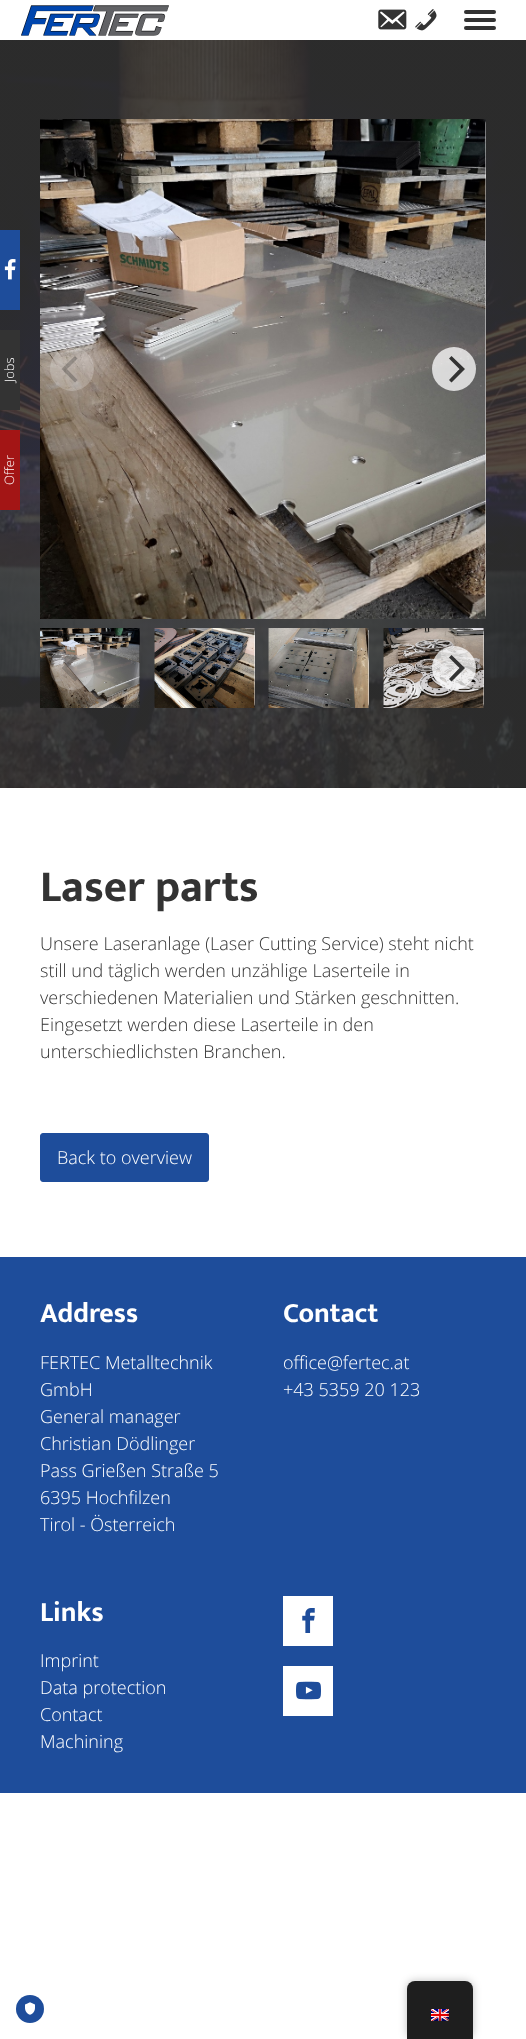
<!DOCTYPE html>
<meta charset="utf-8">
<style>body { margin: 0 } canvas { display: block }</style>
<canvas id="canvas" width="526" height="2039"></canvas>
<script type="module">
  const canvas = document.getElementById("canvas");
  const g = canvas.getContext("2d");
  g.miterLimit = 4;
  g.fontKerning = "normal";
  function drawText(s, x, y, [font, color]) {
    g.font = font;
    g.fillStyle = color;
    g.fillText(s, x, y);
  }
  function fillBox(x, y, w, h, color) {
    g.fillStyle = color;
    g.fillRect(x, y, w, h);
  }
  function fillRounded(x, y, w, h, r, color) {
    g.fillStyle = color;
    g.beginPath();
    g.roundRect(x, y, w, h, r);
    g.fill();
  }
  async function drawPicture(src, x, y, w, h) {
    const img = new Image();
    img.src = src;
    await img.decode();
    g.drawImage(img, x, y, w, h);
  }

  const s1 = ["bold 45px Mukta", "#333333"];
  const s2 = ["300 18px Open Sans", "#333333"];
  const s3 = ["300 18px Open Sans", "#FFFFFF"];
  const s4 = ["bold 28px Mukta", "#FFFFFF"];

  fillBox(0, 0, 526, 2039, "#FFFFFF");
  await drawPicture("pic1.png", 21, 5, 148, 31);
  await drawPicture("pic2.png", 378, 9, 29, 21);
  await drawPicture("pic3.png", 415, 9, 22, 22);
  fillRounded(464, 10, 32, 4, 2, "#333333");
  fillRounded(464, 18, 32, 4, 2, "#333333");
  fillRounded(464, 26, 32, 4, 2, "#333333");
  await drawPicture("pic4.png", 0, 40, 526, 748);
  fillRounded(40, 119, 446, 500, 5, "#FFFFFF");
  await drawPicture("pic5.png", 40, 119, 446, 500);
  g.fillStyle = "rgba(255, 255, 255, 0.22)";
  g.beginPath();
  g.arc(72, 369, 22, 0, Math.PI * 2);
  g.fill();
  g.fillStyle = "rgba(51, 51, 51, 0.3)";
  g.beginPath();
  g.moveTo(61.5, 369);
  g.lineTo(75, 382.5);
  g.lineTo(77.5, 380);
  g.lineTo(67, 369);
  g.lineTo(77.5, 358.5);
  g.lineTo(75, 356);
  g.closePath();
  g.fill();
  g.fillStyle = "rgba(255, 255, 255, 0.75)";
  g.beginPath();
  g.arc(454, 369, 22, 0, Math.PI * 2);
  g.fill();
  g.fillStyle = "#333333";
  g.beginPath();
  g.moveTo(465, 369);
  g.lineTo(451.5, 356);
  g.lineTo(449, 358.5);
  g.lineTo(459.5, 369);
  g.lineTo(449, 380);
  g.lineTo(451.5, 382.5);
  g.closePath();
  g.fill();
  fillRounded(40, 628, 100, 80, 5, "rgba(0, 0, 0, 0.5)");
  await drawPicture("pic6.png", 40, 628, 100, 80);
  fillRounded(155, 628, 100, 80, 5, "#FFFFFF");
  await drawPicture("pic7.png", 154, 628, 101, 80);
  fillRounded(269, 628, 100, 80, 5, "#FFFFFF");
  await drawPicture("pic8.png", 268, 628, 101, 80);
  fillRounded(384, 628, 100, 80, 5, "#FFFFFF");
  await drawPicture("pic9.png", 383, 628, 101, 80);
  g.fillStyle = "rgba(255, 255, 255, 0.22)";
  g.beginPath();
  g.arc(72, 668, 22, 0, Math.PI * 2);
  g.fill();
  g.fillStyle = "rgba(51, 51, 51, 0.3)";
  g.beginPath();
  g.moveTo(61.5, 668);
  g.lineTo(75, 681.5);
  g.lineTo(77.5, 679);
  g.lineTo(67, 668);
  g.lineTo(77.5, 657.5);
  g.lineTo(75, 655);
  g.closePath();
  g.fill();
  g.fillStyle = "rgba(255, 255, 255, 0.75)";
  g.beginPath();
  g.arc(454, 668, 22, 0, Math.PI * 2);
  g.fill();
  g.fillStyle = "#333333";
  g.beginPath();
  g.moveTo(465, 668);
  g.lineTo(451.5, 655);
  g.lineTo(449, 657.5);
  g.lineTo(459.5, 668);
  g.lineTo(449, 679);
  g.lineTo(451.5, 681.5);
  g.closePath();
  g.fill();
  fillBox(0, 230, 20, 80, "#1E4D9B");
  await drawPicture("pic10.png", 4, 259, 12, 21);
  fillBox(0, 330, 20, 80, "#333333");
  g.font = "300 13px Open Sans";
  g.fillStyle = "#FFFFFF";
  g.save();
  g.translate(14, 382);
  g.rotate(-90 * Math.PI / 180);
  g.fillText("Jobs", 0, 0);
  g.restore();
  fillBox(0, 430, 20, 80, "#A31515");
  g.fillStyle = "#FFFFFF";
  g.save();
  g.translate(14, 485);
  g.rotate(-90 * Math.PI / 180);
  g.fillText("Offer", 0, 0);
  g.restore();
  drawText("Laser parts", 40, 901, s1);
  drawText("Unsere Laseranlage (Laser Cutting Service) steht nicht", 40, 950, s2);
  drawText("still und täglich werden unzählige Laserteile in", 40, 977, s2);
  drawText("verschiedenen Materialien und Stärken geschnitten.", 40, 1004, s2);
  drawText("Eingesetzt werden diese Laserteile in den", 40, 1031, s2);
  drawText("unterschiedlichsten Branchen.", 40, 1058, s2);
  g.fillStyle = "#1E4D9B";
  g.beginPath();
  g.roundRect(40.5, 1133.5, 168, 48, 2.5);
  g.fill();
  g.strokeStyle = "#1E4D9B";
  g.stroke();
  drawText("Back to overview", 57, 1164, s3);
  fillBox(0, 1257, 526, 536, "#1E4D9B");
  drawText("Address", 40, 1322, s4);
  drawText("FERTEC Metalltechnik", 40, 1369, s3);
  drawText("GmbH", 40, 1396, s3);
  drawText("General manager", 40, 1423, s3);
  drawText("Christian Dödlinger", 40, 1450, s3);
  drawText("Pass Grießen Straße 5", 40, 1477, s3);
  drawText("6395 Hochfilzen", 40, 1504, s3);
  drawText("Tirol - Österreich", 40, 1531, s3);
  drawText("Contact", 283, 1322, s4);
  drawText("office@fertec.at", 283, 1369, s3);
  drawText("+43 5359 20 123", 283, 1396, s3);
  drawText("Links", 40, 1621, s4);
  drawText("Imprint", 40, 1667, s3);
  drawText("Data protection", 40, 1694, s3);
  drawText("Contact", 40, 1721, s3);
  drawText("Machining", 40, 1748, s3);
  fillBox(283, 1596, 50, 50, "#FFFFFF");
  await drawPicture("pic11.png", 302, 1608, 13, 25);
  fillBox(283, 1666, 50, 50, "#FFFFFF");
  await drawPicture("pic12.png", 296, 1681, 25, 19);
  g.fillStyle = "#1E4D9B";
  g.beginPath();
  g.arc(30, 2009, 14, 0, Math.PI * 2);
  g.fill();
  await drawPicture("pic13.png", 25, 2002, 10, 13);
  g.fillStyle = "rgba(0, 0, 0, 0.25)";
  g.filter = "blur(4px)";
  g.beginPath();
  g.roundRect(407, 1981, 66, 58, 8);
  g.fill();
  g.filter = "none";
  g.fillStyle = "#1E1E1E";
  g.beginPath();
  g.roundRect(407, 1981, 66, 58, [8, 8, 0, 0]);
  g.fill();
  await drawPicture("pic14.png", 431, 2009, 18, 12);
</script>
